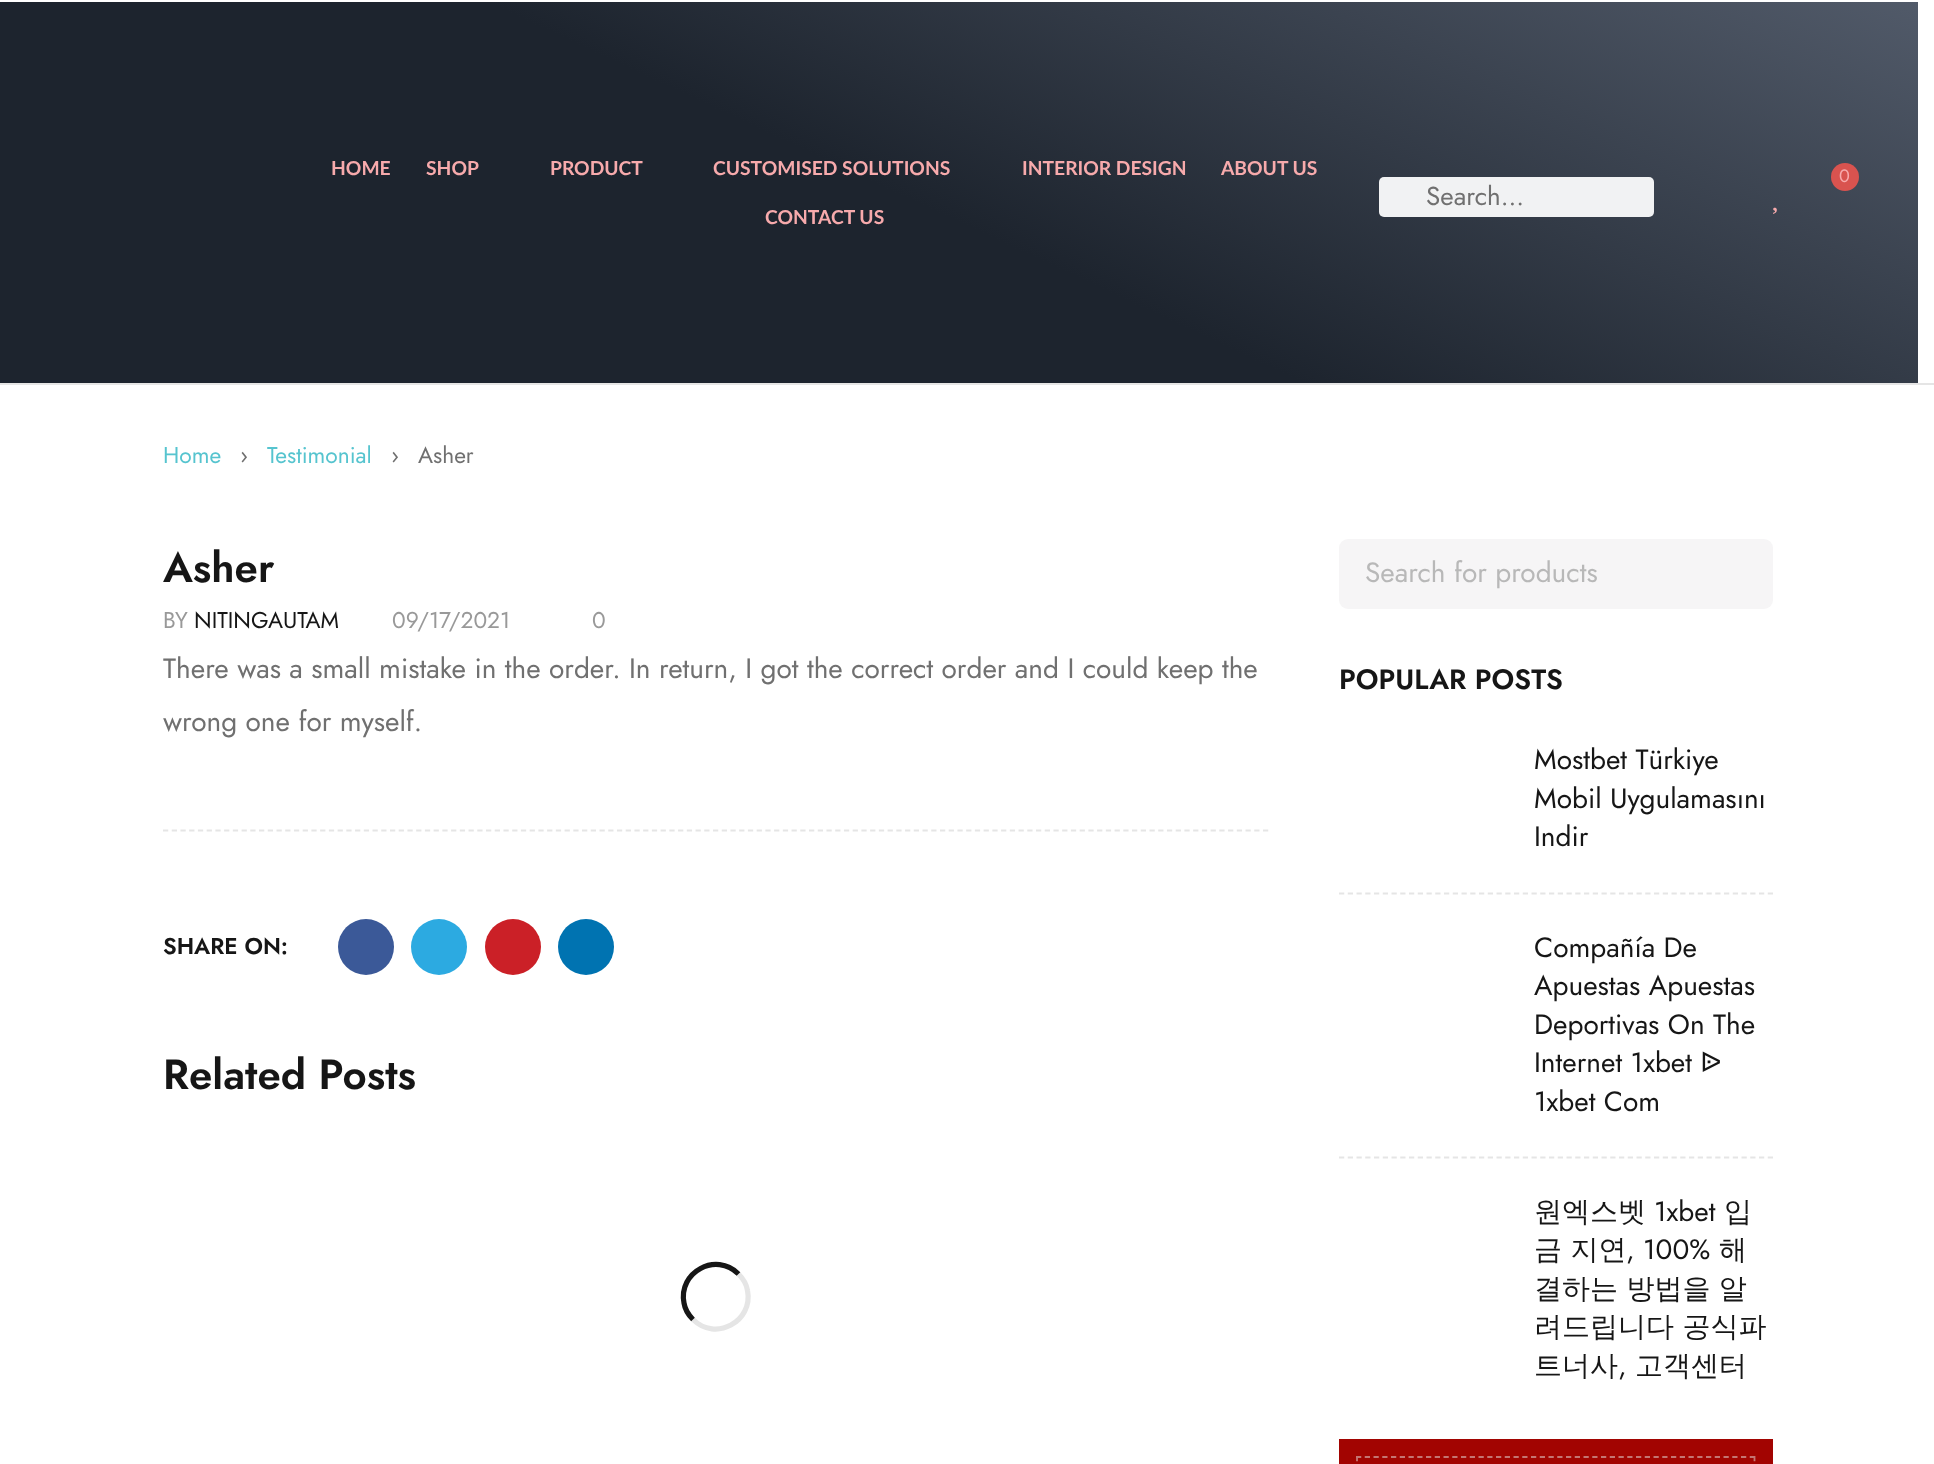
<!DOCTYPE html>
<meta charset="utf-8">
<style>body { margin: 0 } canvas { display: block }</style>
<canvas id="canvas" width="1934" height="1464"></canvas>
<script type="module">
  const canvas = document.getElementById("canvas");
  const g = canvas.getContext("2d");
  g.miterLimit = 4;
  g.fontKerning = "normal";
  function drawText(s, x, y, [font, color]) {
    g.font = font;
    g.fillStyle = color;
    g.fillText(s, x, y);
  }
  function fillBox(x, y, w, h, color) {
    g.fillStyle = color;
    g.fillRect(x, y, w, h);
  }
  function fillRounded(x, y, w, h, r, color) {
    g.fillStyle = color;
    g.beginPath();
    g.roundRect(x, y, w, h, r);
    g.fill();
  }
  async function drawPicture(src, x, y, w, h) {
    const img = new Image();
    img.src = src;
    await img.decode();
    g.drawImage(img, x, y, w, h);
  }
  let gradient;

  const s1 = ["bold 19.25px Lato", "#F7AAAC"];
  const s2 = ["18px Jost", "#F7AAAC"];
  const s3 = ["26px Jost", "#707070"];
  const s4 = ["22.75px Jost", "#56C4CF"];
  const s5 = ["22.75px Jost", "#707070"];
  const s6 = ["600 42px Jost", "#161616"];
  const s7 = ["22.75px Jost", "#999999"];
  const s8 = ["22.75px Jost", "#161616"];
  const s9 = ["28px Jost", "#707070"];
  const s10 = ["600 22.75px Jost", "#161616"];
  const s11 = ["28px Jost", "#B8B8B8"];
  const s12 = ["600 28px Jost", "#161616"];
  const s13 = ["28px Jost", "#161616"];
  const s14 = ["28px DejaVu Sans", "#161616"];
  const s15 = ["500 28px WenQuanYi Zen Hei", "#161616"];

  fillBox(0, 0, 1934, 1464, "#FFFFFF");
  gradient = g.createLinearGradient(704, 720, 1196, -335);
  gradient.addColorStop(0.48, "#1D242E");
  gradient.addColorStop(1, "#515A69");
  g.fillStyle = gradient;
  g.fillRect(0, 2, 1918, 381);
  drawText("HOME", 331, 175, s1);
  drawText("SHOP", 426, 175, s1);
  drawText("PRODUCT", 550, 175, s1);
  drawText("CUSTOMISED SOLUTIONS", 713, 175, s1);
  drawText("INTERIOR DESIGN", 1022, 175, s1);
  drawText("ABOUT US", 1221, 175, s1);
  drawText("CONTACT US", 765, 224, s1);
  g.fillStyle = "#D9534F";
  g.beginPath();
  g.arc(1845, 177, 14, 0, Math.PI * 2);
  g.fill();
  drawText("0", 1839, 182, s2);
  fillRounded(1379, 177, 275, 40, 5, "#F1F2F3");
  drawText("Search...", 1426, 205, s3);
  await drawPicture("pic1.png", 1773, 207, 4, 7);
  fillBox(0, 383, 1934, 2, "#E5E5E5");
  drawText("Home", 163, 463, s4);
  drawText("›", 240, 463, s5);
  drawText("Testimonial", 267, 463, s4);
  drawText("›", 391, 463, s5);
  drawText("Asher", 418, 463, s5);
  drawText("Asher", 163, 582, s6);
  drawText("BY", 163, 628, s7);
  drawText("NITINGAUTAM", 194, 628, s8);
  drawText("09/17/2021", 392, 628, s7);
  drawText("0", 592, 628, s7);
  drawText("There was a small mistake in the order. In return, I got the correct order and I could keep the", 163, 678, s9);
  drawText("wrong one for myself.", 163, 731, s9);
  g.beginPath();
  g.moveTo(163, 830.5);
  g.lineTo(1269, 830.5);
  g.strokeStyle = "#E5E5E5";
  g.lineWidth = 1.8;
  g.setLineDash([5.25, 3.48]);
  g.stroke();
  drawText("SHARE ON:", 163, 954, s10);
  g.fillStyle = "#3B5998";
  g.beginPath();
  g.arc(366, 947, 28, 0, Math.PI * 2);
  g.fill();
  g.fillStyle = "#2CAAE1";
  g.beginPath();
  g.arc(439, 947, 28, 0, Math.PI * 2);
  g.fill();
  g.fillStyle = "#CB2027";
  g.beginPath();
  g.arc(513, 947, 28, 0, Math.PI * 2);
  g.fill();
  g.fillStyle = "#0073B1";
  g.beginPath();
  g.arc(586, 947, 28, 0, Math.PI * 2);
  g.fill();
  drawText("Related Posts", 163, 1089, s6);
  g.beginPath();
  g.moveTo(738.5, 1274);
  g.bezierCurveTo(743, 1278.5, 746.5, 1284, 747.5, 1290.5);
  g.bezierCurveTo(753.5, 1321.5, 715.5, 1342, 693, 1319.5);
  g.lineWidth = 5.2;
  g.setLineDash([]);
  g.stroke();
  g.beginPath();
  g.moveTo(693, 1319.5);
  g.bezierCurveTo(688.5, 1315, 685, 1309.5, 684, 1303);
  g.bezierCurveTo(678, 1272, 716, 1251.5, 738.5, 1274);
  g.strokeStyle = "#161616";
  g.stroke();
  fillRounded(1339, 539, 434, 70, 9, "#F6F5F6");
  drawText("Search for products", 1365, 582, s11);
  drawText("POPULAR POSTS", 1339, 689, s12);
  g.beginPath();
  g.moveTo(1339, 893.5);
  g.lineTo(1773, 893.5);
  g.strokeStyle = "#E5E5E5";
  g.lineWidth = 1.8;
  g.setLineDash([5.25, 3.5]);
  g.stroke();
  drawText("Mostbet Türkiye", 1534, 769, s13);
  drawText("Mobil Uygulamasını", 1534, 808, s13);
  drawText("Indir", 1534, 846, s13);
  g.beginPath();
  g.moveTo(1339, 1157.5);
  g.lineTo(1773, 1157.5);
  g.stroke();
  drawText("Compañía De", 1534, 957, s13);
  drawText("Apuestas Apuestas", 1534, 995, s13);
  drawText("Deportivas On The", 1534, 1034, s13);
  drawText("Internet 1xbet", 1534, 1072, s13);
  drawText("ᐉ", 1700, 1072, s14);
  drawText("1xbet Com", 1534, 1111, s13);
  drawText("원엑스벳", 1534, 1221, s15);
  drawText("1xbet", 1654, 1221, s13);
  drawText("입", 1724, 1221, s15);
  drawText("금 지연", 1534, 1259, s15);
  drawText(", 100%", 1626, 1259, s13);
  drawText("해", 1719, 1259, s15);
  drawText("결하는 방법을 알", 1534, 1298, s15);
  drawText("려드립니다 공식파", 1534, 1336, s15);
  drawText("트너사", 1534, 1375, s15);
  drawText(",", 1618, 1375, s13);
  drawText("고객센터", 1635, 1375, s15);
  fillBox(1339, 1439, 434, 25, "#A20401");
  g.beginPath();
  g.moveTo(1356, 1457);
  g.lineTo(1755, 1457);
  g.strokeStyle = "#C47573";
  g.stroke();
  g.beginPath();
  g.moveTo(1754.5, 1456);
  g.lineTo(1754.5, 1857);
  g.setLineDash([5.25, 3.54]);
  g.stroke();
  g.beginPath();
  g.moveTo(1357, 1456);
  g.lineTo(1357, 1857);
  g.stroke();
</script>
